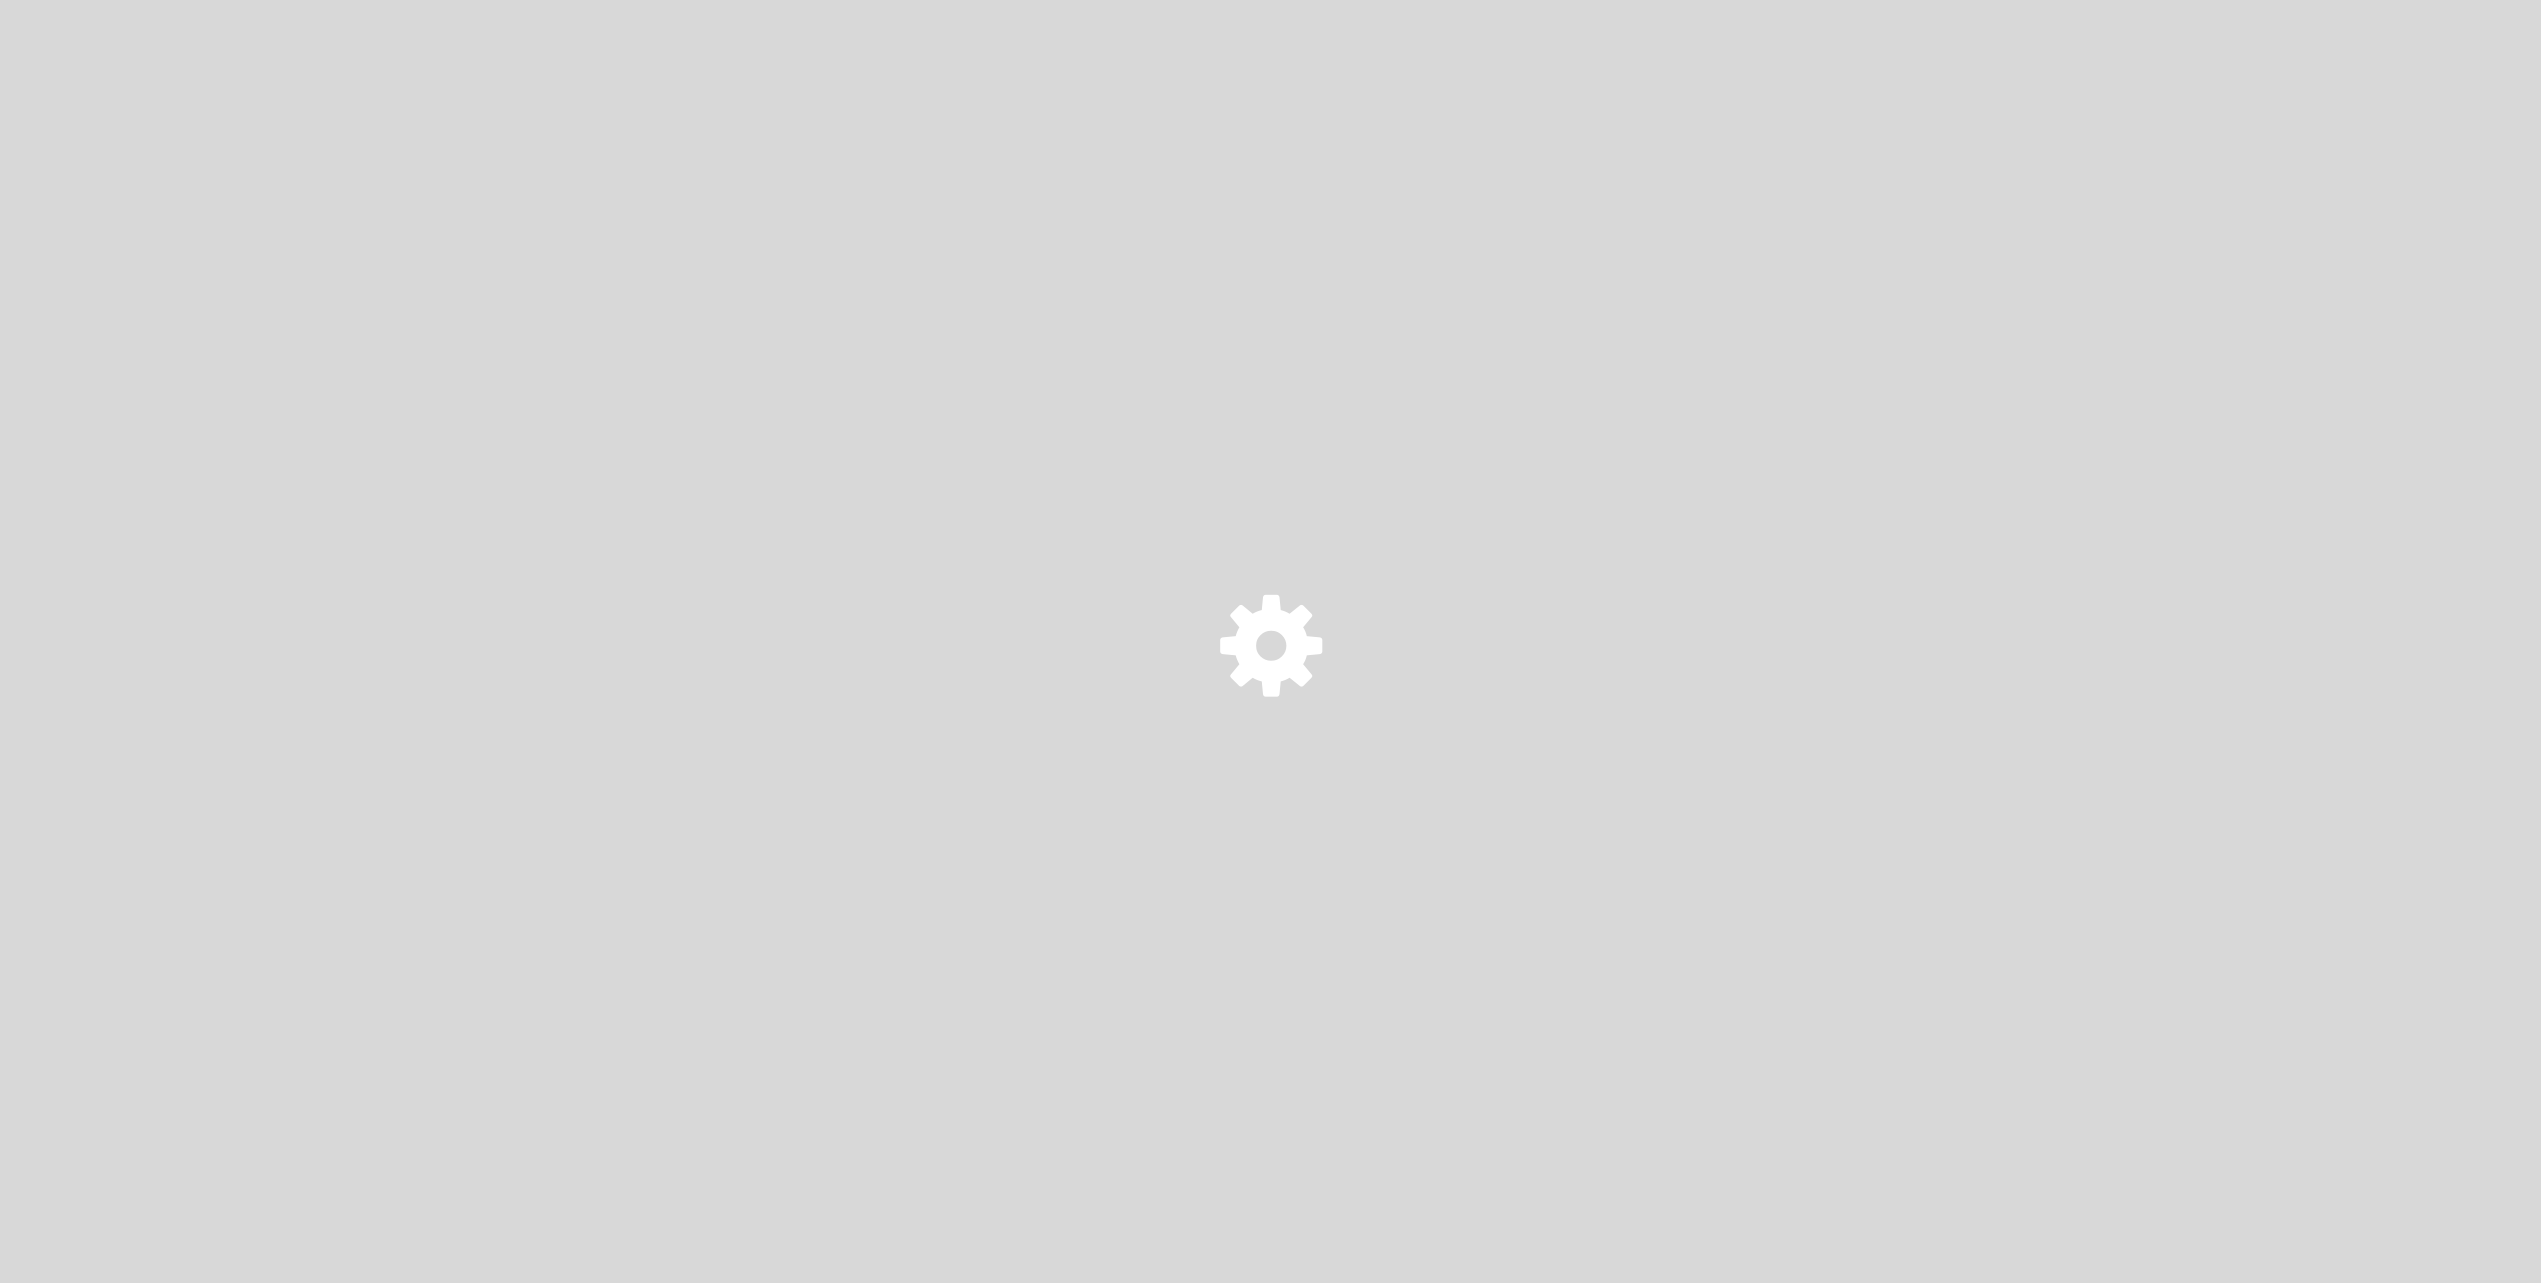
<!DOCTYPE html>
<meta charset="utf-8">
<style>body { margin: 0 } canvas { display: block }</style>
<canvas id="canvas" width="2541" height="1283"></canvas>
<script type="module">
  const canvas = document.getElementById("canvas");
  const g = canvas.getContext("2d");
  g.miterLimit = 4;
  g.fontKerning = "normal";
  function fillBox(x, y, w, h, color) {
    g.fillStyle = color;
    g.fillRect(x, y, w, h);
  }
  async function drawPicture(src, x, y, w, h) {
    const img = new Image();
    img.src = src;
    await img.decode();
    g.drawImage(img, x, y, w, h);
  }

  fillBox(0, 0, 2541, 1283, "#D8D8D8");
  await drawPicture("pic1.png", 1220, 594, 103, 103);
</script>
